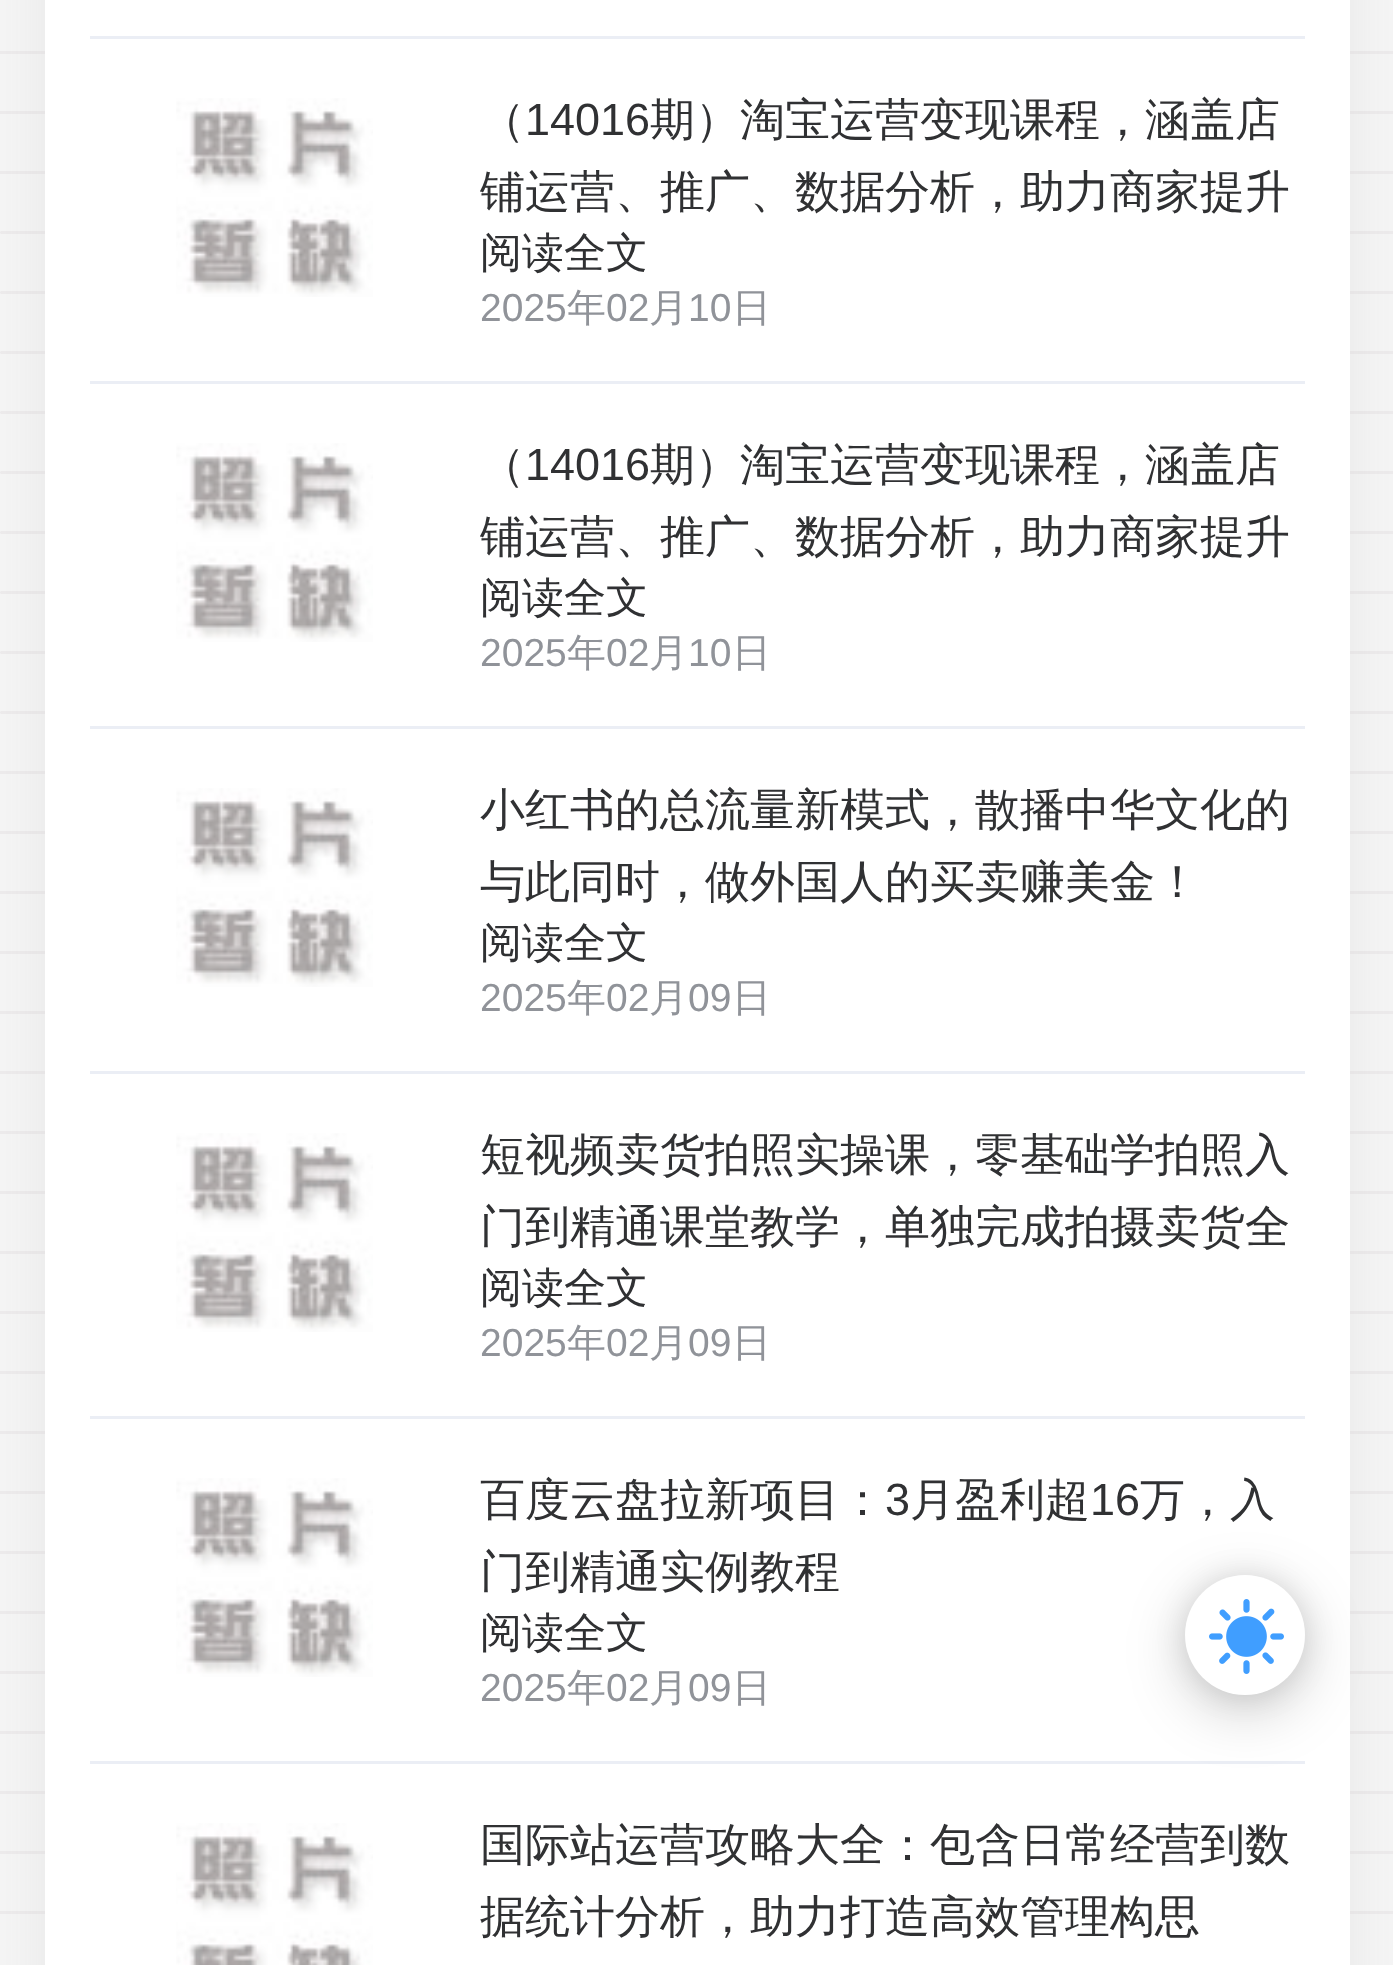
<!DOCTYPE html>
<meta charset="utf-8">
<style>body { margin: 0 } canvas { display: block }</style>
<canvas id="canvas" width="1393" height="1965"></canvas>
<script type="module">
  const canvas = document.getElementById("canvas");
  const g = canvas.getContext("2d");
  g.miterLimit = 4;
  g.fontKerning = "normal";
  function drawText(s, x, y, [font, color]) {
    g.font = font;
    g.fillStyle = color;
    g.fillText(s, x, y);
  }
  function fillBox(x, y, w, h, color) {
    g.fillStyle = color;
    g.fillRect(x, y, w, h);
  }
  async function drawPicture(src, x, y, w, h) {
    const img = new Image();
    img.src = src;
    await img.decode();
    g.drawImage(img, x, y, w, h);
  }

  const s1 = ["500 45px WenQuanYi Zen Hei", "#303133"];
  const s2 = ["45px Liberation Sans", "#303133"];
  const s3 = ["500 42px WenQuanYi Zen Hei", "#303133"];
  const s4 = ["39px Liberation Sans", "#909399"];
  const s5 = ["500 39px WenQuanYi Zen Hei", "#909399"];

  fillBox(0, 0, 1393, 1965, "#F4F4F4");
  await drawPicture("pic1.png", 0, 51, 1393, 1863);
  g.fillStyle = "rgba(158, 158, 158, 0.22)";
  g.filter = "blur(30px)";
  g.beginPath();
  g.roundRect(60, -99, 1275, 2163, 9);
  g.fill();
  g.filter = "none";
  fillBox(45, 0, 1305, 1965, "#FFFFFF");
  fillBox(90, 36, 1215, 3, "#EBEEF5");
  fillBox(90, 381, 1215, 3, "#EBEEF5");
  await drawPicture("pic2.png", 176, 98, 197, 199);
  drawText("（", 480, 135, s1);
  drawText("14016", 525, 135, s2);
  drawText("期）淘宝运营变现课程，涵盖店", 650, 135, s1);
  drawText("铺运营、推广、数据分析，助力商家提升", 480, 207, s1);
  drawText("阅读全文", 480, 267, s3);
  drawText("2025", 480, 321, s4);
  drawText("年", 567, 321, s5);
  drawText("02", 606, 321, s4);
  drawText("月", 649, 321, s5);
  drawText("10", 688, 321, s4);
  drawText("日", 732, 321, s5);
  fillBox(90, 726, 1215, 3, "#EBEEF5");
  await drawPicture("pic3.png", 176, 443, 197, 199);
  drawText("（", 480, 480, s1);
  drawText("14016", 525, 480, s2);
  drawText("期）淘宝运营变现课程，涵盖店", 650, 480, s1);
  drawText("铺运营、推广、数据分析，助力商家提升", 480, 552, s1);
  drawText("阅读全文", 480, 612, s3);
  drawText("2025", 480, 666, s4);
  drawText("年", 567, 666, s5);
  drawText("02", 606, 666, s4);
  drawText("月", 649, 666, s5);
  drawText("10", 688, 666, s4);
  drawText("日", 732, 666, s5);
  fillBox(90, 1071, 1215, 3, "#EBEEF5");
  await drawPicture("pic3.png", 176, 788, 197, 199);
  drawText("小红书的总流量新模式，散播中华文化的", 480, 825, s1);
  drawText("与此同时，做外国人的买卖赚美金！", 480, 897, s1);
  drawText("阅读全文", 480, 957, s3);
  drawText("2025", 480, 1011, s4);
  drawText("年", 567, 1011, s5);
  drawText("02", 606, 1011, s4);
  drawText("月", 649, 1011, s5);
  drawText("09", 688, 1011, s4);
  drawText("日", 732, 1011, s5);
  fillBox(90, 1416, 1215, 3, "#EBEEF5");
  await drawPicture("pic3.png", 176, 1133, 197, 199);
  drawText("短视频卖货拍照实操课，零基础学拍照入", 480, 1170, s1);
  drawText("门到精通课堂教学，单独完成拍摄卖货全", 480, 1242, s1);
  drawText("阅读全文", 480, 1302, s3);
  drawText("2025", 480, 1356, s4);
  drawText("年", 567, 1356, s5);
  drawText("02", 606, 1356, s4);
  drawText("月", 649, 1356, s5);
  drawText("09", 688, 1356, s4);
  drawText("日", 732, 1356, s5);
  fillBox(90, 1761, 1215, 3, "#EBEEF5");
  await drawPicture("pic3.png", 176, 1478, 197, 199);
  drawText("百度云盘拉新项目：", 480, 1515, s1);
  drawText("3", 885, 1515, s2);
  drawText("月盈利超", 910, 1515, s1);
  drawText("16", 1090, 1515, s2);
  drawText("万，入", 1140, 1515, s1);
  drawText("门到精通实例教程", 480, 1587, s1);
  drawText("阅读全文", 480, 1647, s3);
  drawText("2025", 480, 1701, s4);
  drawText("年", 567, 1701, s5);
  drawText("02", 606, 1701, s4);
  drawText("月", 649, 1701, s5);
  drawText("09", 688, 1701, s4);
  drawText("日", 732, 1701, s5);
  await drawPicture("pic4.png", 176, 1823, 197, 142);
  drawText("国际站运营攻略大全：包含日常经营到数", 480, 1860, s1);
  drawText("据统计分析，助力打造高效管理构思", 480, 1932, s1);
  g.fillStyle = "rgba(0, 0, 0, 0.2)";
  g.filter = "blur(30px)";
  g.beginPath();
  g.roundRect(1185, 1590, 120, 120, 60);
  g.fill();
  g.filter = "none";
  g.fillStyle = "rgba(0, 0, 0, 0.1)";
  g.filter = "blur(15px)";
  g.beginPath();
  g.roundRect(1185, 1575, 120, 120, 60);
  g.fill();
  g.filter = "none";
  g.fillStyle = "#FFFFFF";
  g.beginPath();
  g.arc(1245, 1635, 60, 0, Math.PI * 2);
  g.fill();
  await drawPicture("pic5.png", 1209, 1599, 75, 75);
</script>
